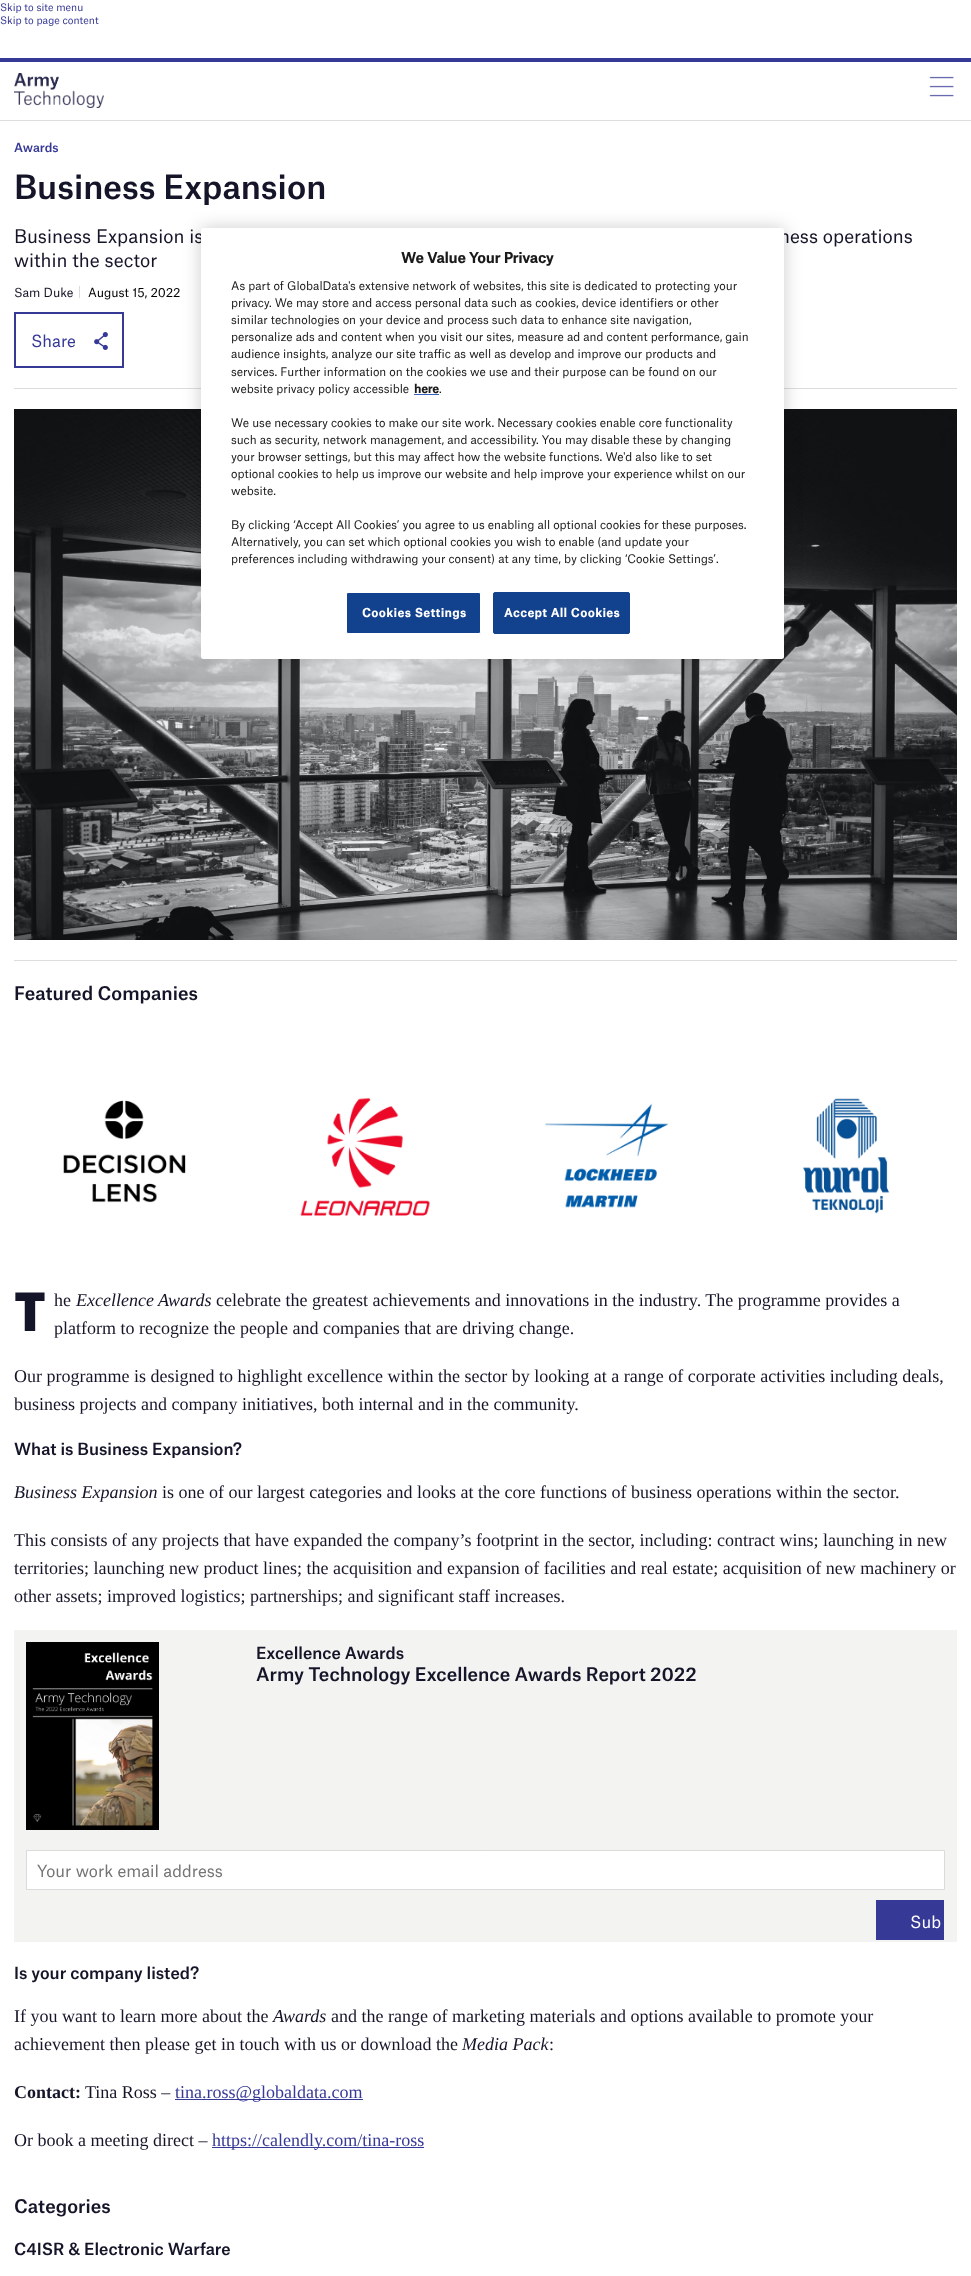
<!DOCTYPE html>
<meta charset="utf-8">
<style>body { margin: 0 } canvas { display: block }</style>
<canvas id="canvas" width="971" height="2276"></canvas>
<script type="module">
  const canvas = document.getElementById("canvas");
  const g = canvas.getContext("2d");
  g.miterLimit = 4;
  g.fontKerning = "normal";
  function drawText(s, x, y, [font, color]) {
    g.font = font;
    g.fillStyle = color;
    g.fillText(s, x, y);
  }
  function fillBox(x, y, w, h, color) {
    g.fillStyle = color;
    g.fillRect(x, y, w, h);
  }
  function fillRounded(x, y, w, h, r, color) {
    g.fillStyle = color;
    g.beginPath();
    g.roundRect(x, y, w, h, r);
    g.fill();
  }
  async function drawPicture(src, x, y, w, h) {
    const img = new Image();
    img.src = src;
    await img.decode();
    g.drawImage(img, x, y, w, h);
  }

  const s1 = ["10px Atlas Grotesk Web", "#373997"];
  const s2 = ["500 12px Atlas Grotesk Web", "#373997"];
  const s3 = ["500 32px Atlas Grotesk Web", "#151529"];
  const s4 = ["18px Atlas Grotesk Web", "#151529"];
  const s5 = ["12px Atlas Grotesk Web", "#151529"];
  const s6 = ["12px Atlas Grotesk Web", "#000000"];
  const s7 = ["16px Atlas Grotesk Web", "#373997"];
  const s8 = ["500 18px Atlas Grotesk Web", "#151529"];
  const s9 = ["900 54px Noto Sans", "#151529"];
  const s10 = ["18px Liberation Serif", "#151529"];
  const s11 = ["italic 18px Liberation Serif", "#151529"];
  const s12 = ["500 16px Atlas Grotesk Web", "#151529"];
  const s13 = ["16px Atlas Grotesk Web", "#757575"];
  const s14 = ["16px Atlas Grotesk Web", "#FFFFFF"];
  const s15 = ["bold 18px Liberation Serif", "#151529"];
  const s16 = ["18px Liberation Serif", "#373997"];
  const s17 = ["bold 14px Atlas Grotesk Web", "#1A1A1A"];
  const s18 = ["11.4px Atlas Grotesk Web", "#1A1A1A"];
  const s19 = ["bold 11.4px Atlas Grotesk Web", "#1A1A1A"];
  const s20 = ["bold 11.4px Atlas Grotesk Web", "#FFFFFF"];

  fillBox(0, 0, 971, 2276, "#FFFFFF");
  drawText("Skip to site menu", 0, 11, s1);
  drawText("Skip to page content", 0, 24, s1);
  fillBox(0, 58, 971, 4, "#373997");
  fillBox(0, 120, 971, 1, "#DDDDDD");
  await drawPicture("pic1.png", 14, 73, 90, 35);
  await drawPicture("pic2.png", 929, 76, 25, 21);
  drawText("Awards", 14, 152, s2);
  drawText("Business Expansion", 14, 199, s3);
  drawText("Business Expansion is", 14, 243, s4);
  drawText("ness operations", 779, 243, s4);
  drawText("within the sector", 14, 267, s4);
  drawText("Sam Duke", 14, 297, s5);
  fillBox(79, 286, 1, 12, "#DBDBDB");
  drawText("August 15, 2022", 88, 297, s6);
  fillBox(14, 388, 943, 1, "#DDDDDD");
  g.strokeStyle = "#373997";
  g.lineWidth = 2;
  g.strokeRect(15, 313, 108, 54);
  drawText("Share", 31, 347, s7);
  await drawPicture("pic3.png", 94, 332, 14, 18);
  await drawPicture("pic4.png", 14, 409, 943, 531);
  fillBox(14, 960, 943, 1, "#DDDDDD");
  drawText("Featured Companies", 14, 1000, s8);
  await drawPicture("pic5.png", 63, 1100, 123, 103);
  await drawPicture("pic6.png", 300, 1097, 130, 119);
  await drawPicture("pic7.png", 545, 1103, 124, 105);
  await drawPicture("pic8.png", 803, 1098, 87, 116);
  drawText("T", 14, 1331, s9);
  drawText("he", 54, 1306, s10);
  drawText("Excellence Awards", 76, 1306, s11);
  drawText("celebrate the greatest achievements and innovations in the industry. The programme provides a", 216, 1306, s10);
  drawText("platform to recognize the people and companies that are driving change.", 54, 1334, s10);
  drawText("Our programme is designed to highlight excellence within the sector by looking at a range of corporate activities including deals,", 14, 1382, s10);
  drawText("business projects and company initiatives, both internal and in the community.", 14, 1410, s10);
  drawText("What is Business Expansion?", 14, 1455, s12);
  drawText("Business Expansion", 14, 1498, s11);
  drawText("is one of our largest categories and looks at the core functions of business operations within the sector.", 162, 1498, s10);
  drawText("This consists of any projects that have expanded the company’s footprint in the sector, including: contract wins; launching in new", 14, 1546, s10);
  drawText("territories; launching new product lines; the acquisition and expansion of facilities and real estate; acquisition of new machinery or", 14, 1574, s10);
  drawText("other assets; improved logistics; partnerships; and significant staff increases.", 14, 1602, s10);
  fillBox(14, 1630, 943, 312, "#F3F3F1");
  await drawPicture("pic9.png", 26, 1642, 133, 188);
  drawText("Excellence Awards", 256, 1659, s12);
  drawText("Army Technology Excellence Awards Report 2022", 256, 1681, s8);
  g.fillStyle = "#FFFFFF";
  g.beginPath();
  g.rect(26.5, 1850.5, 918, 39);
  g.fill();
  g.strokeStyle = "#DBDBDB";
  g.lineWidth = 1;
  g.stroke();
  drawText("Your work email address", 37, 1877, s13);
  fillBox(876, 1900, 68, 40, "#373997");
  drawText("Sub", 910, 1928, s14);
  drawText("Is your company listed?", 14, 1979, s12);
  drawText("If you want to learn more about the", 14, 2022, s10);
  drawText("Awards", 273, 2022, s11);
  drawText("and the range of marketing materials and options available to promote your", 331, 2022, s10);
  drawText("achievement then please get in touch with us or download the", 14, 2050, s10);
  drawText("Media Pack", 462, 2050, s11);
  drawText(":", 549, 2050, s10);
  drawText("Contact:", 14, 2098, s15);
  drawText("Tina Ross –", 85, 2098, s10);
  fillBox(175, 2099, 188, 1, "#373997");
  drawText("tina.ross@globaldata.com", 175, 2098, s16);
  drawText("Or book a meeting direct –", 14, 2146, s10);
  fillBox(212, 2147, 212, 1, "#373997");
  drawText("https://calendly.com/tina-ross", 212, 2146, s16);
  drawText("Categories", 14, 2213, s8);
  drawText("C4ISR & Electronic Warfare", 14, 2255, s12);
  g.fillStyle = "rgba(0, 0, 0, 0.2)";
  g.filter = "blur(9px)";
  g.beginPath();
  g.roundRect(201, 228, 583, 431, 2.5);
  g.fill();
  g.filter = "none";
  fillRounded(201, 228, 583, 431, 2.5, "#FFFFFF");
  drawText("We Value Your Privacy", 401, 263, s17);
  drawText("As part of GlobalData's extensive network of websites, this site is dedicated to protecting your", 231, 290, s18);
  drawText("privacy. We may store and access personal data such as cookies, device identifiers or other", 231, 307, s18);
  drawText("similar technologies on your device and process such data to enhance site navigation,", 231, 324, s18);
  drawText("personalize ads and content when you visit our sites, measure ad and content performance, gain", 231, 341, s18);
  drawText("audience insights, analyze our site traffic as well as develop and improve our products and", 231, 358, s18);
  drawText("services. Further information on the cookies we use and their purpose can be found on our", 231, 376, s18);
  drawText("website privacy policy accessible", 231, 393, s18);
  drawText("here", 414, 393, s19);
  fillBox(414, 394, 25, 1, "#3860BE");
  drawText(".", 439, 393, s18);
  drawText("We use necessary cookies to make our site work. Necessary cookies enable core functionality", 231, 427, s18);
  drawText("such as security, network management, and accessibility. You may disable these by changing", 231, 444, s18);
  drawText("your browser settings, but this may affect how the website functions. We'd also like to set", 231, 461, s18);
  drawText("optional cookies to help us improve our website and help improve your experience whilst on our", 231, 478, s18);
  drawText("website.", 231, 495, s18);
  drawText("By clicking ‘Accept All Cookies’ you agree to us enabling all optional cookies for these purposes.", 231, 529, s18);
  drawText("Alternatively, you can set which optional cookies you wish to enable (and update your", 231, 546, s18);
  drawText("preferences including withdrawing your consent) at any time, by clicking ‘Cookie Settings’.", 231, 563, s18);
  g.fillStyle = "#12418D";
  g.beginPath();
  g.roundRect(346.5, 592.5, 134, 41, 1.5);
  g.fill();
  g.strokeStyle = "#FFFFFF";
  g.stroke();
  g.letterSpacing = "0.6px";
  drawText("Cookies Settings", 362, 617, s20);
  g.fillStyle = "#12418D";
  g.beginPath();
  g.roundRect(493.5, 592.5, 136, 41, 1.5);
  g.fill();
  g.strokeStyle = "#12418D";
  g.stroke();
  drawText("Accept All Cookies", 504, 617, s20);
</script>
